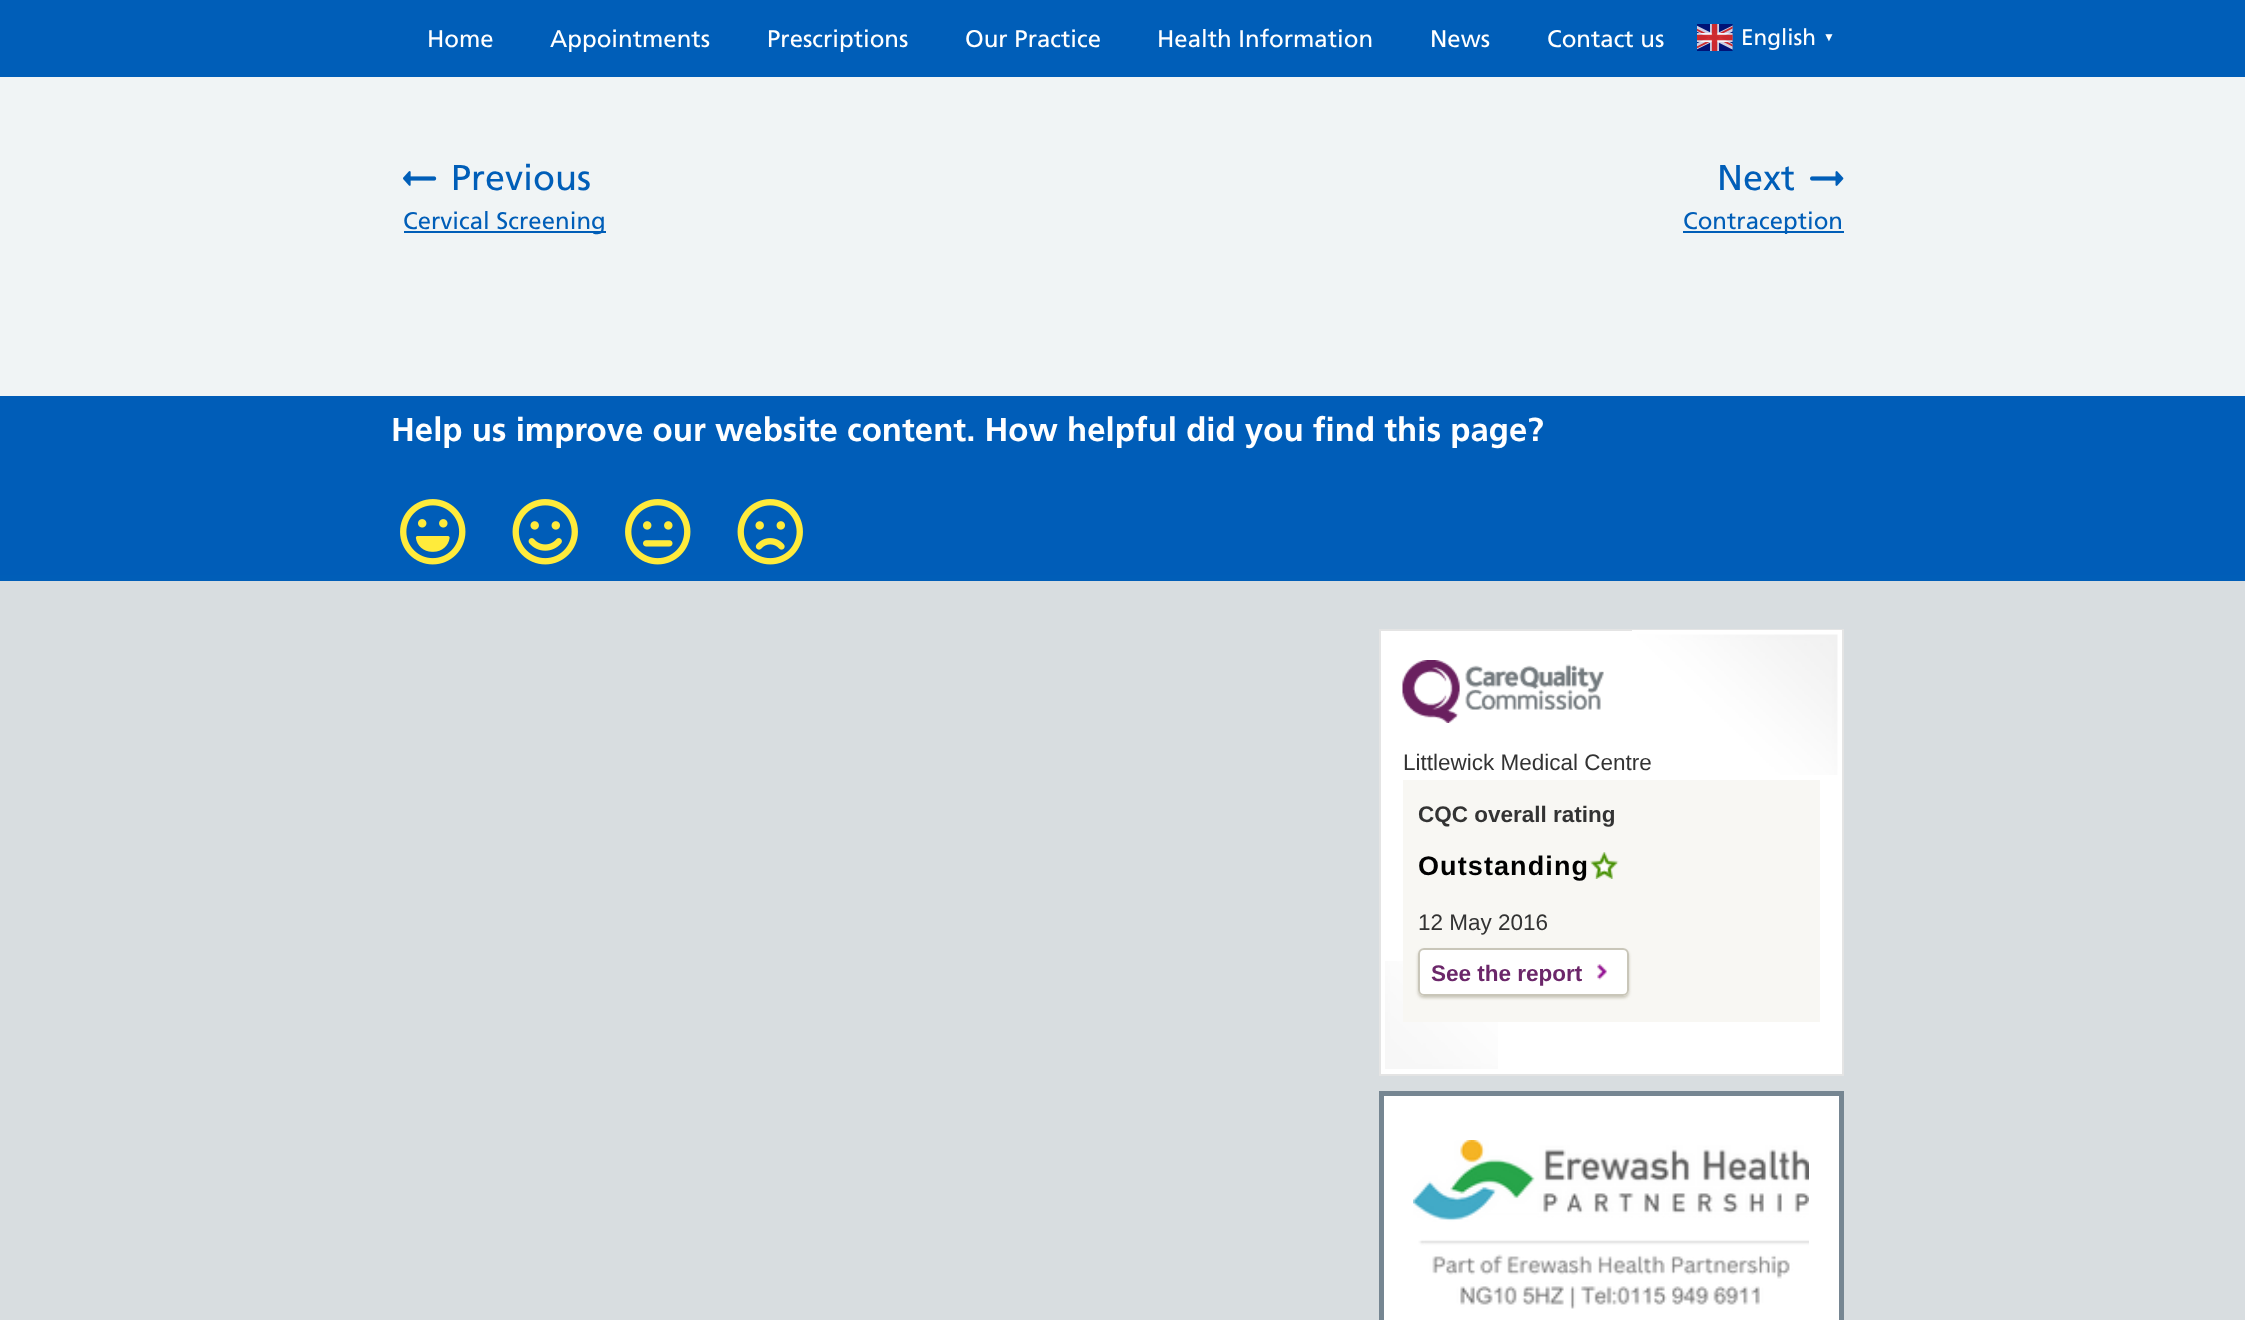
<!DOCTYPE html>
<meta charset="utf-8">
<style>body { margin: 0 } canvas { display: block }</style>
<canvas id="canvas" width="2245" height="1320"></canvas>
<script type="module">
  const canvas = document.getElementById("canvas");
  const g = canvas.getContext("2d");
  g.miterLimit = 4;
  g.fontKerning = "normal";
  function drawText(s, x, y, [font, color]) {
    g.font = font;
    g.fillStyle = color;
    g.fillText(s, x, y);
  }
  function fillBox(x, y, w, h, color) {
    g.fillStyle = color;
    g.fillRect(x, y, w, h);
  }
  function fillRounded(x, y, w, h, r, color) {
    g.fillStyle = color;
    g.beginPath();
    g.roundRect(x, y, w, h, r);
    g.fill();
  }
  async function drawPicture(src, x, y, w, h) {
    const img = new Image();
    img.src = src;
    await img.decode();
    g.drawImage(img, x, y, w, h);
  }

  const s1 = ["24px Frutiger", "#FFFFFF"];
  const s2 = ["22.5px Frutiger", "#FFFFFF"];
  const s3 = ["bold 12px Liberation Sans", "#FFFFFF"];
  const s4 = ["36px Frutiger", "#005EB8"];
  const s5 = ["24px Frutiger", "#005EB8"];
  const s6 = ["bold 33px Frutiger", "#FFFFFF"];
  const s7 = ["22.5px Liberation Sans", "#333333"];
  const s8 = ["bold 22.5px Liberation Sans", "#333333"];
  const s9 = ["bold 27px Liberation Sans", "#000000"];
  const s10 = ["bold 22.5px Liberation Sans", "#6C276A"];

  fillBox(0, 0, 2245, 1320, "#F0F4F5");
  fillBox(0, 0, 2245, 77, "#005EB8");
  drawText("Home", 427, 47, s1);
  drawText("Appointments", 550, 47, s1);
  drawText("Prescriptions", 767, 47, s1);
  drawText("Our Practice", 965, 47, s1);
  drawText("Health Information", 1157, 47, s1);
  drawText("News", 1430, 47, s1);
  drawText("Contact us", 1547, 47, s1);
  await drawPicture("pic1.png", 1697, 24, 36, 27);
  drawText("English", 1741, 45, s2);
  drawText("▼", 1823, 41, s3);
  await drawPicture("pic2.png", 403, 171, 34, 15);
  drawText("Previous", 451, 190, s4);
  fillBox(404, 231, 202, 2, "#005EB8");
  drawText("Cervical Screening", 403, 229, s5);
  drawText("Next", 1717, 190, s4);
  await drawPicture("pic3.png", 1810, 171, 34, 15);
  fillBox(1683, 231, 161, 2, "#005EB8");
  drawText("Contraception", 1683, 229, s5);
  fillBox(0, 396, 2245, 179, "#005DB8");
  drawText("Help us improve our website content. How helpful did you find this page?", 391, 441, s6);
  await drawPicture("pic4.png", 400, 499, 66, 66);
  await drawPicture("pic5.png", 512, 499, 66, 66);
  await drawPicture("pic6.png", 625, 499, 66, 66);
  await drawPicture("pic7.png", 737, 499, 66, 66);
  fillBox(0, 581, 2245, 739, "#D8DDE0");
  fillBox(0, 575, 2245, 6, "#005EB8");
  fillBox(1381, 631, 461, 443, "#FFFFFF");
  await drawPicture("pic8.png", 1385, 961, 113, 108);
  g.strokeStyle = "#E4E4E4";
  g.lineWidth = 2;
  g.strokeRect(1380, 630, 463, 445);
  await drawPicture("pic9.png", 1632, 630, 210, 145);
  await drawPicture("pic10.png", 1402, 660, 202, 63);
  drawText("Littlewick Medical Centre", 1403, 770, s7);
  fillBox(1403, 780, 417, 242, "#F8F7F3");
  drawText("CQC overall rating", 1418, 822, s8);
  g.letterSpacing = "1.1px";
  drawText("Outstanding", 1418, 875, s9);
  await drawPicture("pic11.png", 1590, 852, 29, 27);
  g.letterSpacing = "0px";
  drawText("12 May 2016", 1418, 930, s7);
  g.fillStyle = "#C9C6B9";
  g.filter = "blur(1.5px)";
  g.beginPath();
  g.roundRect(1418, 950, 211, 48, 6);
  g.fill();
  g.filter = "none";
  fillRounded(1418, 948, 211, 48, 6, "#FFFFFF");
  await drawPicture("pic12.png", 1597, 964, 10, 16);
  g.beginPath();
  g.roundRect(1419, 949, 209, 46, 5);
  g.strokeStyle = "#C9C6B9";
  g.stroke();
  drawText("See the report", 1431, 981, s10);
  g.fillStyle = "#FFFFFF";
  g.beginPath();
  g.rect(1381.5, 1093.5, 460, 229);
  g.fill();
  g.strokeStyle = "#768692";
  g.lineWidth = 5;
  g.stroke();
  await drawPicture("pic13.png", 1413, 1140, 396, 169);
</script>
